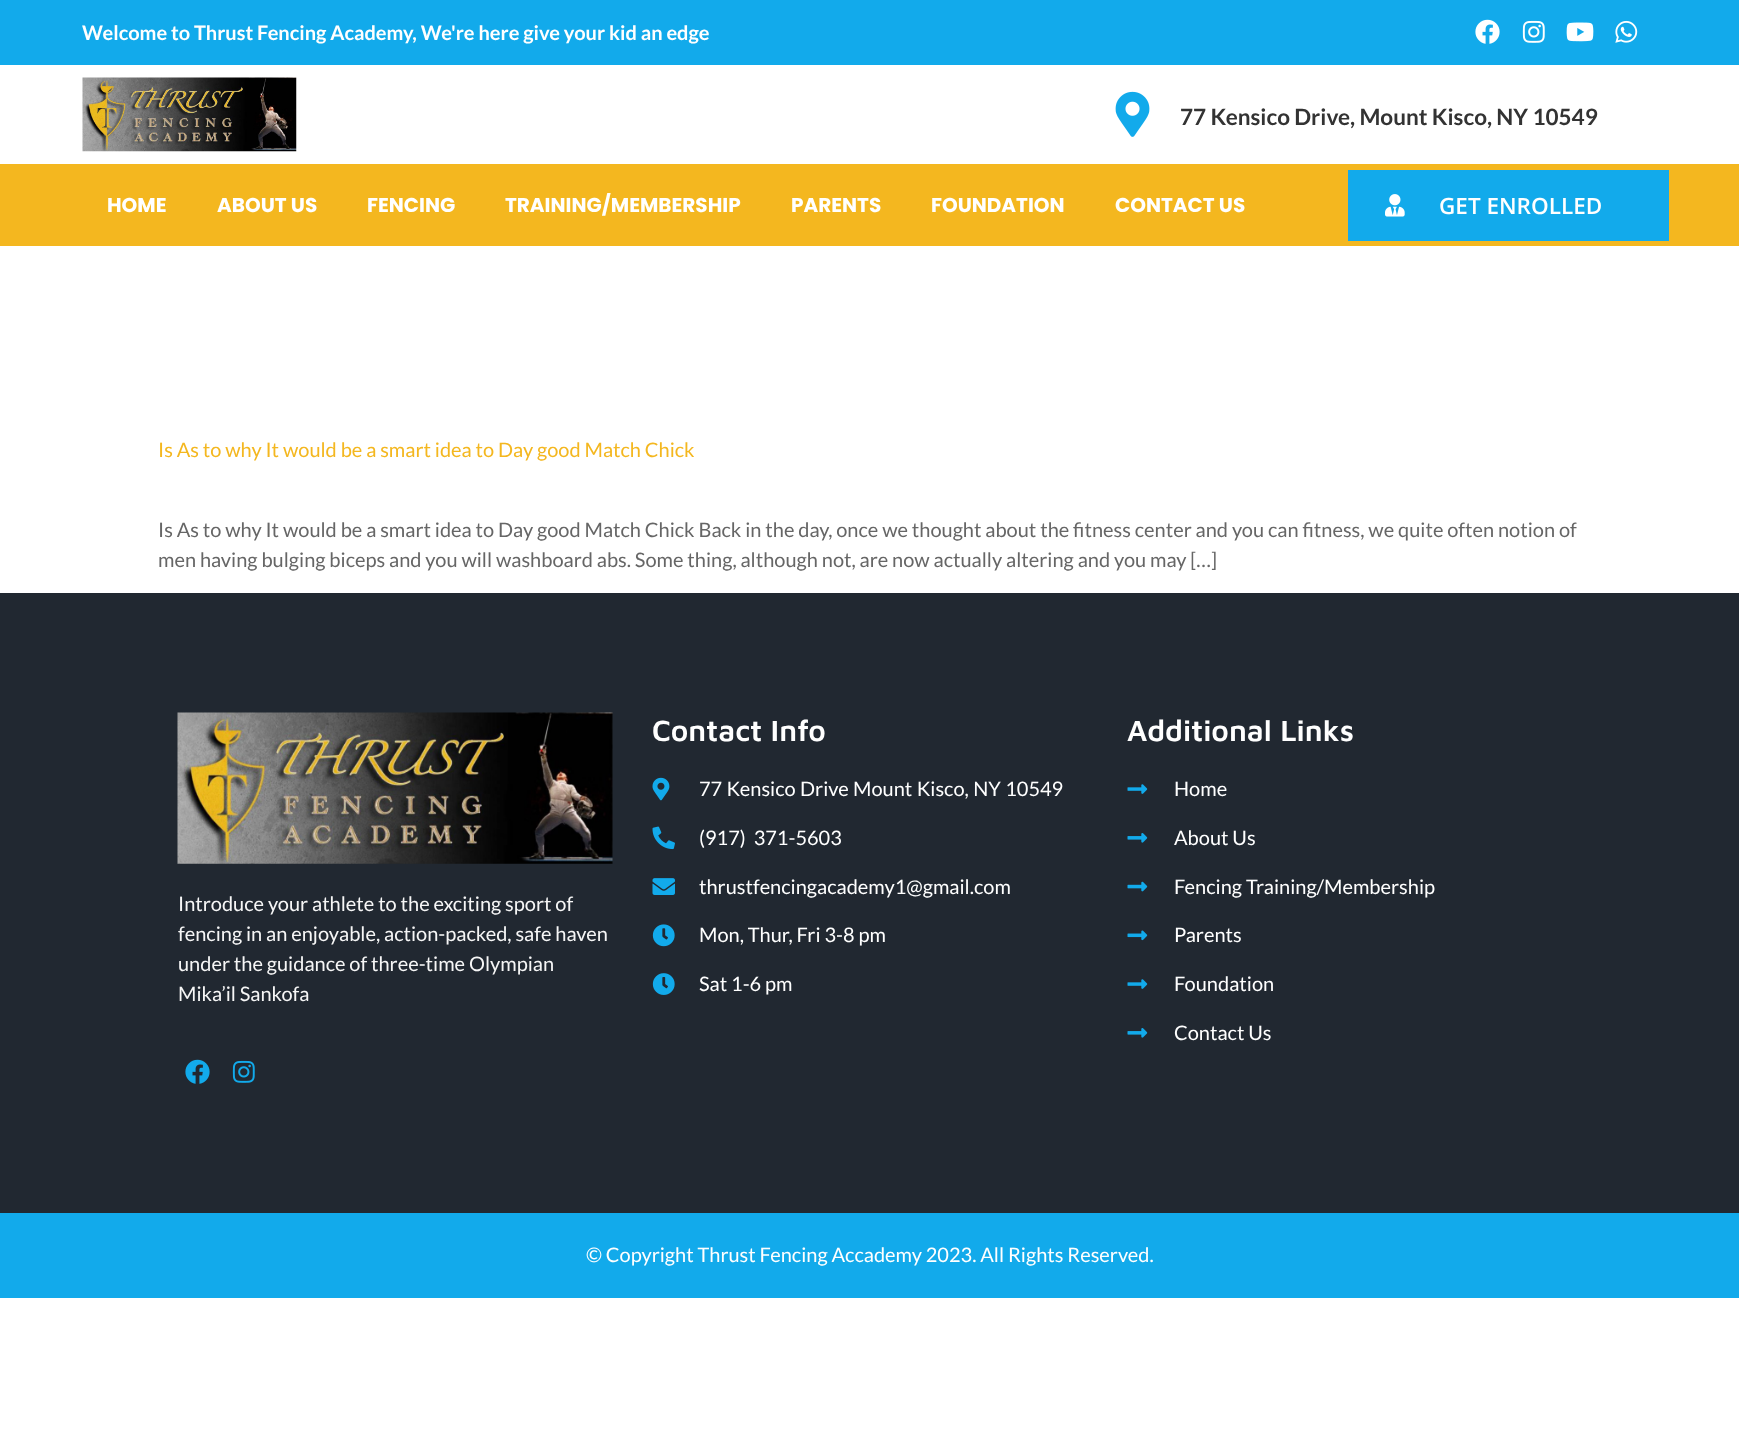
<!DOCTYPE html>
<meta charset="utf-8">
<style>body { margin: 0 } canvas { display: block }</style>
<canvas id="canvas" width="1739" height="1448"></canvas>
<script type="module">
  const canvas = document.getElementById("canvas");
  const g = canvas.getContext("2d");
  g.miterLimit = 4;
  g.fontKerning = "normal";
  function drawText(s, x, y, [font, color]) {
    g.font = font;
    g.fillStyle = color;
    g.fillText(s, x, y);
  }
  function fillBox(x, y, w, h, color) {
    g.fillStyle = color;
    g.fillRect(x, y, w, h);
  }
  async function drawPicture(src, x, y, w, h) {
    const img = new Image();
    img.src = src;
    await img.decode();
    g.drawImage(img, x, y, w, h);
  }

  const s1 = ["bold 20px Lato", "#FFFFFF"];
  const s2 = ["bold 22.5px Lato", "#333333"];
  const s3 = ["bold 20px Poppins", "#FFFFFF"];
  const s4 = ["600 22.5px Open Sans", "#FFFFFF"];
  const s5 = ["20px Lato", "#F4B71F"];
  const s6 = ["20px Lato", "#666666"];
  const s7 = ["20px Lato", "#F6F6F6"];
  const s8 = ["600 30px Maven Pro", "#FFFFFF"];
  const s9 = ["20px Lato", "#FFFFFF"];

  fillBox(0, 0, 1739, 1448, "#FFFFFF");
  fillBox(0, 0, 1739, 65, "#12AAEB");
  drawText("Welcome to Thrust Fencing Academy, We're here give your kid an edge", 82, 40, s1);
  await drawPicture("pic1.png", 1475, 19, 25, 25);
  await drawPicture("pic2.png", 1522, 20, 23, 23);
  await drawPicture("pic3.png", 1566, 22, 28, 20);
  await drawPicture("pic4.png", 1615, 20, 23, 23);
  await drawPicture("pic5.png", 82, 77, 215, 75);
  await drawPicture("pic6.png", 1115, 91, 35, 46);
  drawText("77 Kensico Drive, Mount Kisco, NY 10549", 1180, 125, s2);
  fillBox(0, 164, 1739, 82, "#F4B71F");
  drawText("HOME", 107, 212, s3);
  drawText("ABOUT US", 217, 212, s3);
  drawText("FENCING", 367, 212, s3);
  drawText("TRAINING/MEMBERSHIP", 505, 212, s3);
  drawText("PARENTS", 791, 212, s3);
  drawText("FOUNDATION", 931, 212, s3);
  drawText("CONTACT US", 1115, 212, s3);
  fillBox(1348, 170, 321, 71, "#12AAEB");
  await drawPicture("pic7.png", 1385, 194, 20, 23);
  drawText("GET ENROLLED", 1439, 214, s4);
  drawText("Is As to why It would be a smart idea to Day good Match Chick", 158, 457, s5);
  drawText("Is As to why It would be a smart idea to Day good Match Chick Back in the day, once we thought about the fitness center and you can fitness, we quite often notion of", 158, 537, s6);
  drawText("men having bulging biceps and you will washboard abs. Some thing, although not, are now actually altering and you may […]", 158, 567, s6);
  fillBox(0, 593, 1739, 620, "#212831");
  await drawPicture("pic8.png", 177, 712, 436, 152);
  drawText("Introduce your athlete to the exciting sport of", 178, 911, s7);
  drawText("fencing in an enjoyable, action-packed, safe haven", 178, 941, s7);
  drawText("under the guidance of three-time Olympian", 178, 971, s7);
  drawText("Mika’il Sankofa", 178, 1001, s7);
  await drawPicture("pic9.png", 185, 1059, 25, 25);
  await drawPicture("pic10.png", 232, 1060, 23, 23);
  drawText("Contact Info", 652, 741, s8);
  await drawPicture("pic11.png", 652, 777, 18, 24);
  g.wordSpacing = "0.5px";
  drawText("77 Kensico Drive Mount Kisco, NY 10549", 699, 796, s9);
  await drawPicture("pic12.png", 652, 826, 23, 24);
  g.wordSpacing = "4px";
  drawText("(917) 371-5603", 699, 845, s9);
  await drawPicture("pic13.png", 652, 878, 23, 17);
  g.wordSpacing = "0px";
  drawText("thrustfencingacademy1@gmail.com", 699, 894, s9);
  await drawPicture("pic14.png", 652, 924, 23, 23);
  drawText("Mon, Thur, Fri 3-8 pm", 699, 942, s9);
  await drawPicture("pic15.png", 652, 973, 23, 22);
  drawText("Sat 1-6 pm", 699, 991, s9);
  drawText("Additional Links", 1127, 741, s8);
  await drawPicture("pic16.png", 1127, 784, 21, 10);
  drawText("Home", 1174, 796, s9);
  await drawPicture("pic17.png", 1127, 833, 21, 10);
  drawText("About Us", 1174, 845, s9);
  await drawPicture("pic18.png", 1127, 881, 21, 11);
  drawText("Fencing Training/Membership", 1174, 894, s9);
  await drawPicture("pic19.png", 1127, 930, 21, 11);
  drawText("Parents", 1174, 942, s9);
  await drawPicture("pic16.png", 1127, 979, 21, 10);
  drawText("Foundation", 1174, 991, s9);
  await drawPicture("pic17.png", 1127, 1028, 21, 10);
  drawText("Contact Us", 1174, 1040, s9);
  fillBox(0, 1213, 1739, 85, "#12AAEB");
  drawText("© Copyright Thrust Fencing Accademy 2023. All Rights Reserved.", 586, 1262, s9);
</script>
